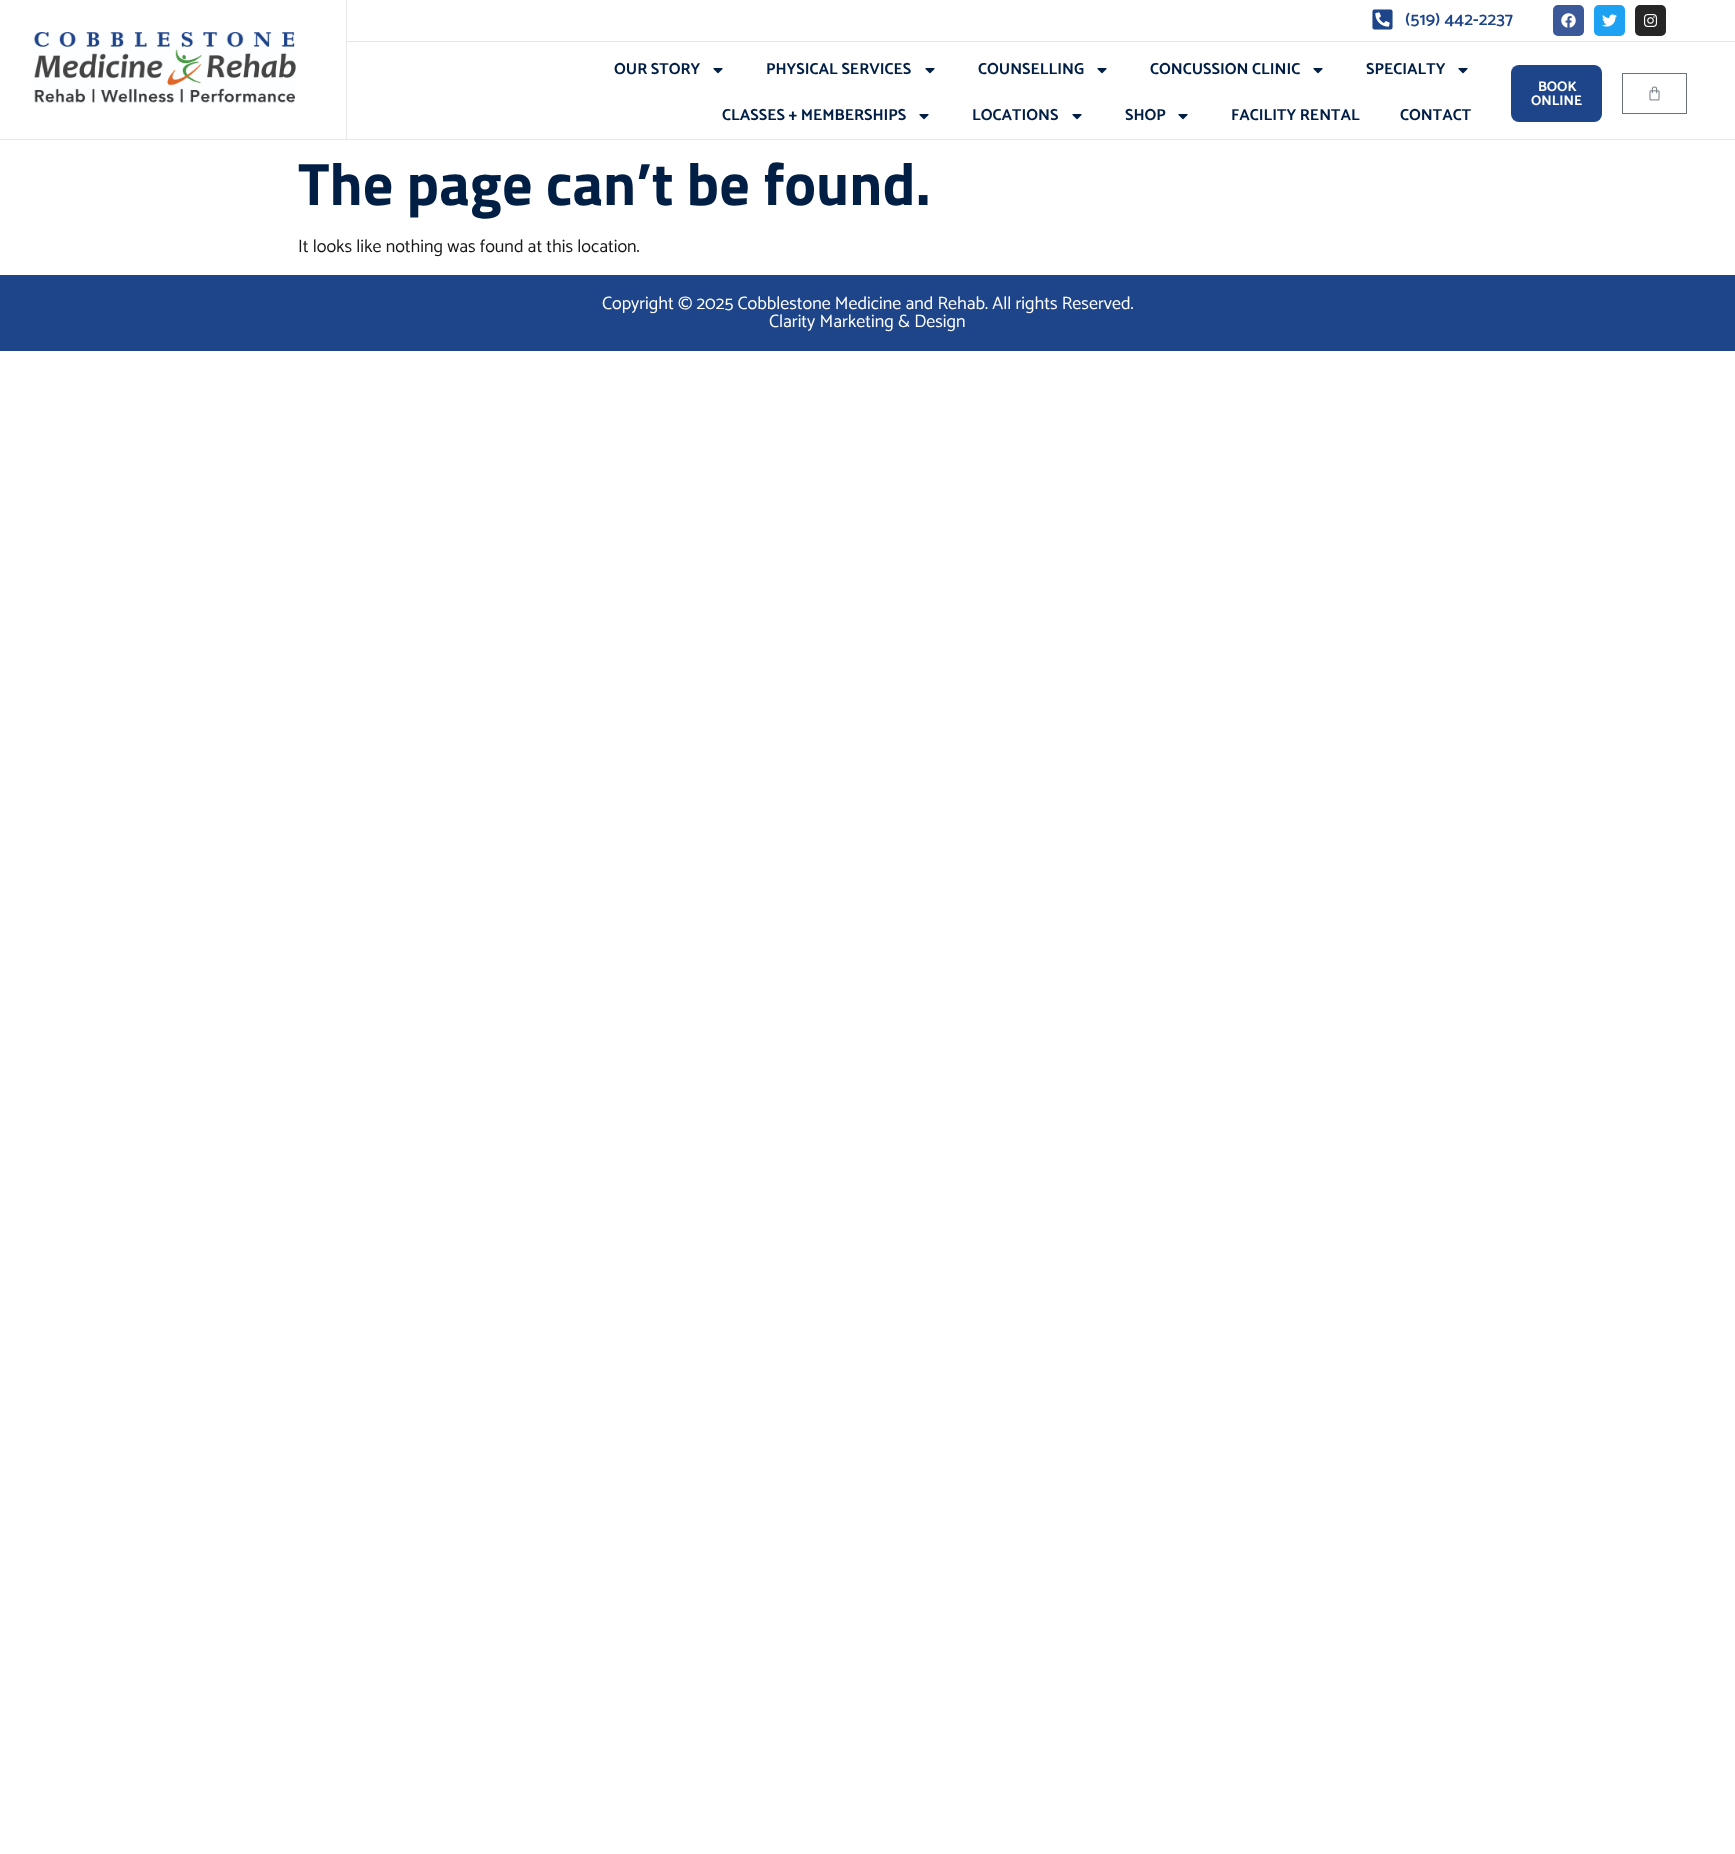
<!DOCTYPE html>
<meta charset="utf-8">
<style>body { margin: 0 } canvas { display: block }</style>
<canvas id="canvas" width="1735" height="1854"></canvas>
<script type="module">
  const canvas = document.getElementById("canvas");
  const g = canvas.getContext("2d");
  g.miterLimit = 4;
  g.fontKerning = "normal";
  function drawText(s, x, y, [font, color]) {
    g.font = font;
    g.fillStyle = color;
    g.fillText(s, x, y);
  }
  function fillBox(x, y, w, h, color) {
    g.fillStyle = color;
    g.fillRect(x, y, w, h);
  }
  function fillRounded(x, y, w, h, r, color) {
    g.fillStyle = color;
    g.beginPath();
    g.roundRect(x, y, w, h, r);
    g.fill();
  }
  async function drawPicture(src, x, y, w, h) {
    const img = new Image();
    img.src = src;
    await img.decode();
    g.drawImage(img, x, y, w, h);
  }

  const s1 = ["600 18px Catamaran", "#1E458A"];
  const s2 = ["bold 16px Catamaran", "#011E45"];
  const s3 = ["bold 14px Catamaran", "#FFFFFF"];
  const s4 = ["bold 60px Titillium Web", "#011E45"];
  const s5 = ["18px Catamaran", "#181818"];
  const s6 = ["18px Catamaran", "#FFFFFF"];

  fillBox(0, 0, 1735, 1854, "#FFFFFF");
  fillBox(0, 139, 1735, 1, "#E7E7E7");
  fillBox(346, 0, 1, 139, "#E7E7E7");
  await drawPicture("pic1.png", 33, 32, 263, 71);
  fillBox(347, 41, 1388, 1, "#E7E7E7");
  await drawPicture("pic2.png", 1372, 9, 21, 21);
  drawText("(519) 442-2237", 1405, 25, s1);
  fillRounded(1553, 5, 31, 31, 5, "#3B5998");
  await drawPicture("pic3.png", 1561, 13, 15, 15);
  fillRounded(1594, 5, 31, 31, 5, "#1DA1F2");
  await drawPicture("pic4.png", 1602, 14, 15, 13);
  fillRounded(1635, 5, 31, 31, 5, "#262626");
  await drawPicture("pic5.png", 1644, 14, 14, 13);
  drawText("OUR STORY", 614, 74, s2);
  await drawPicture("pic6.png", 713, 68, 10, 6);
  drawText("PHYSICAL SERVICES", 766, 74, s2);
  await drawPicture("pic6.png", 925, 68, 10, 6);
  drawText("COUNSELLING", 978, 74, s2);
  await drawPicture("pic6.png", 1097, 68, 10, 6);
  drawText("CONCUSSION CLINIC", 1150, 74, s2);
  await drawPicture("pic6.png", 1313, 68, 10, 6);
  drawText("SPECIALTY", 1366, 74, s2);
  await drawPicture("pic6.png", 1458, 68, 10, 6);
  drawText("CLASSES + MEMBERSHIPS", 722, 120, s2);
  await drawPicture("pic6.png", 919, 114, 10, 6);
  drawText("LOCATIONS", 972, 120, s2);
  await drawPicture("pic6.png", 1072, 114, 10, 6);
  drawText("SHOP", 1125, 120, s2);
  await drawPicture("pic6.png", 1178, 114, 10, 6);
  drawText("FACILITY RENTAL", 1231, 120, s2);
  drawText("CONTACT", 1400, 120, s2);
  fillRounded(1511, 65, 91, 57, 8, "#1E458A");
  drawText("BOOK", 1538, 91, s3);
  drawText("ONLINE", 1531, 105, s3);
  g.strokeStyle = "#69727D";
  g.strokeRect(1622.5, 73.5, 64, 40);
  await drawPicture("pic7.png", 1649, 86, 11, 15);
  drawText("The page can’t be found.", 298, 205, s4);
  drawText("It looks like nothing was found at this location.", 298, 252, s5);
  fillBox(0, 275, 1735, 76, "#1E458A");
  drawText("Copyright © 2025 Cobblestone Medicine and Rehab. All rights Reserved.", 602, 309, s6);
  drawText("Clarity Marketing & Design", 769, 327, s6);
</script>
